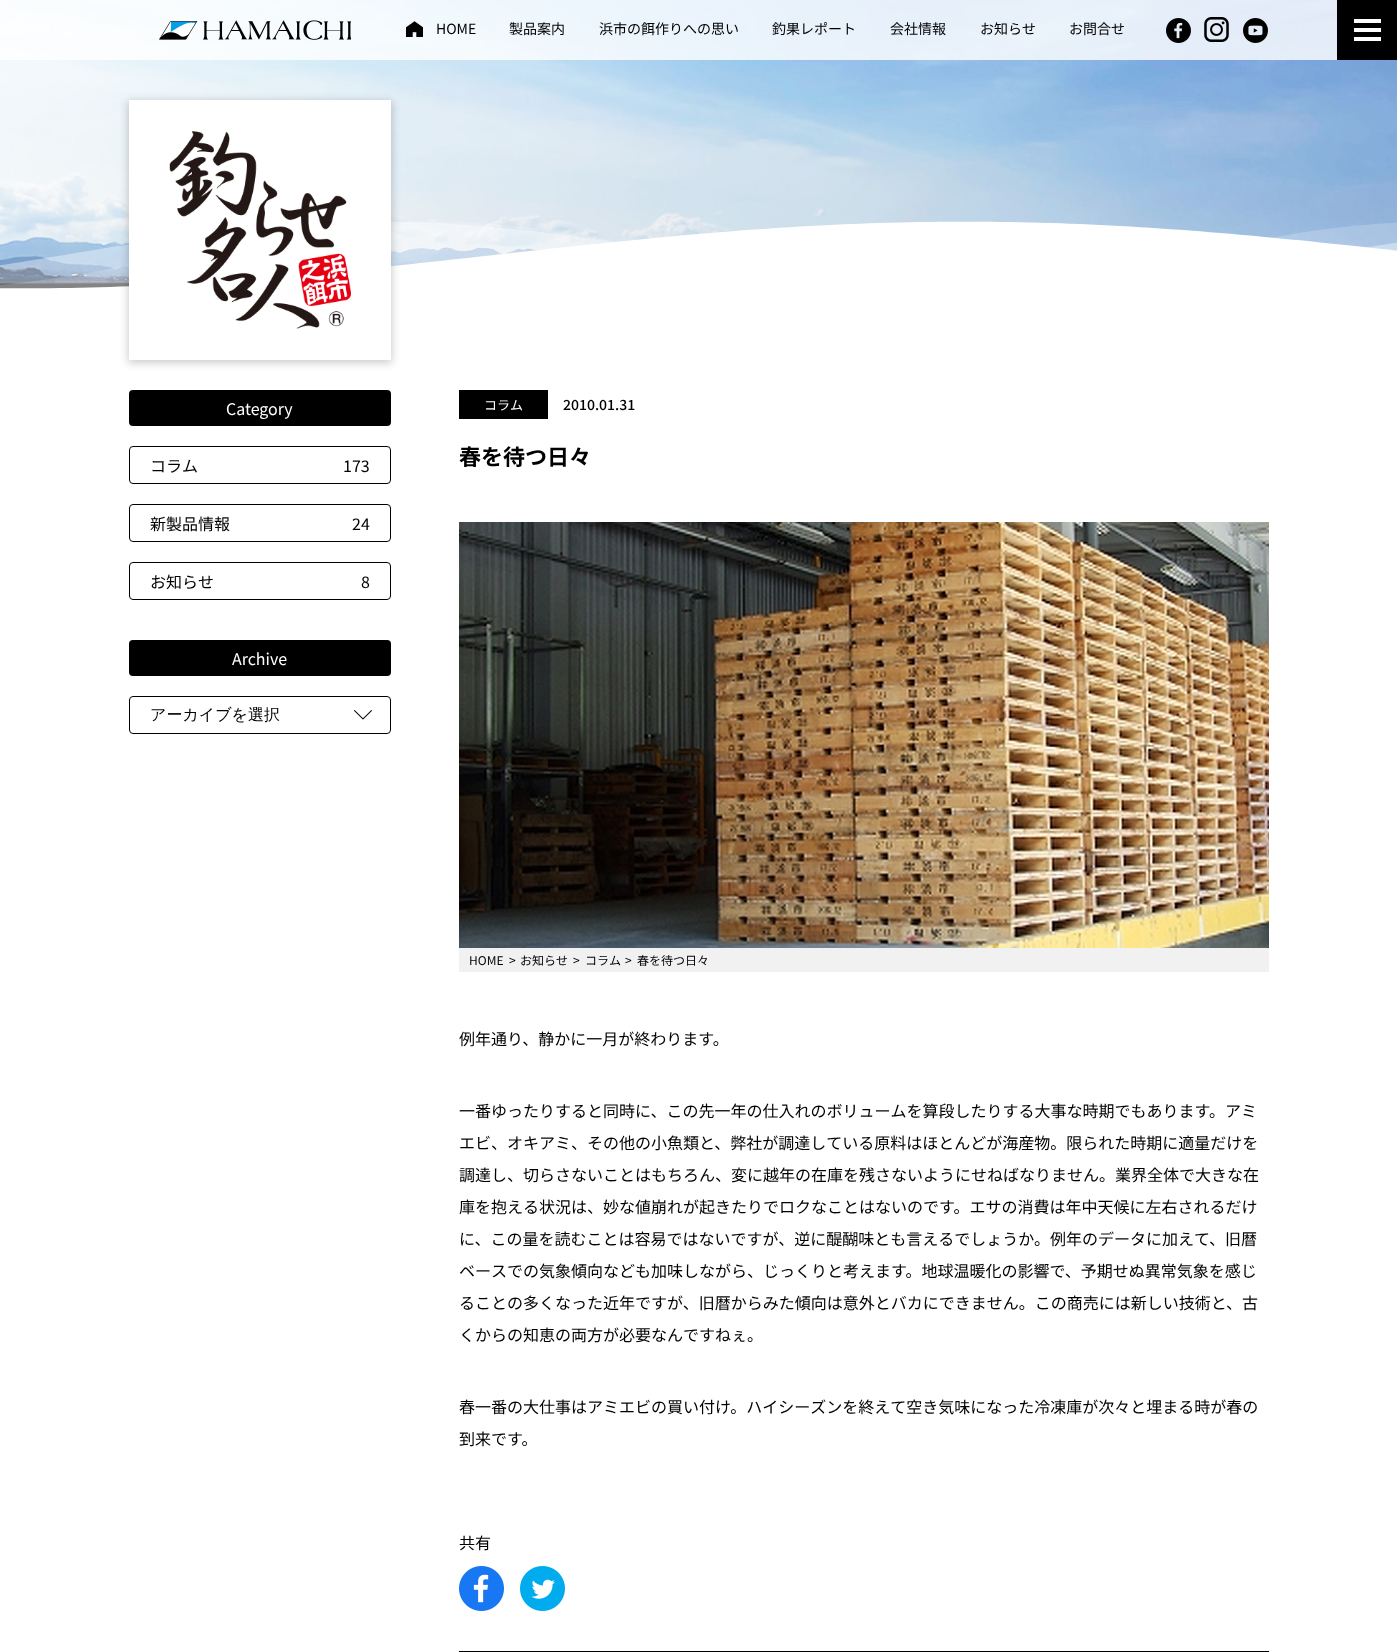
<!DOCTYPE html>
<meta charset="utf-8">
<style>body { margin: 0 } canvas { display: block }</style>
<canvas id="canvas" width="1397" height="1652"></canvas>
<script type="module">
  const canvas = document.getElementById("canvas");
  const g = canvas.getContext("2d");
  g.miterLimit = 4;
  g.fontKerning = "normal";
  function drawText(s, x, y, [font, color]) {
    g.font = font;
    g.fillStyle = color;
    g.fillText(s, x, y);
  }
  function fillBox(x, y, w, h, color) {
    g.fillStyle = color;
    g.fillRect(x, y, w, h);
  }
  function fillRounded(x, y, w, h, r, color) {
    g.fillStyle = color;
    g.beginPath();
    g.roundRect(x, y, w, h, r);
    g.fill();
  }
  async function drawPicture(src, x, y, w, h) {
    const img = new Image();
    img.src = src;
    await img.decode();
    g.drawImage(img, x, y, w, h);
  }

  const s1 = ["14px Noto Sans JP", "#000000"];
  const s2 = ["16px Noto Sans JP", "#FFFFFF"];
  const s3 = ["16px Noto Sans JP", "#000000"];
  const s4 = ["500 16px WenQuanYi Zen Hei", "#000000"];
  const s5 = ["13px Noto Sans JP", "#FFFFFF"];
  const s6 = ["500 14px Noto Sans JP", "#000000"];
  const s7 = ["bold 22px Noto Sans JP", "#000000"];
  const s8 = ["12px Noto Sans JP", "#000000"];

  fillBox(0, 0, 1397, 1652, "#FFFFFF");
  await drawPicture("pic1.png", 0, 0, 1397, 289);
  await drawPicture("pic2.png", 0, 221, 1397, 134);
  fillBox(0, 0, 1337, 60, "rgba(255, 255, 255, 0.8)");
  await drawPicture("pic3.png", 159, 20, 192, 20);
  await drawPicture("pic4.png", 406, 21, 17, 16);
  drawText("HOME", 436, 34, s1);
  drawText("製品案内", 509, 34, s1);
  drawText("浜市の餌作りへの思い", 599, 34, s1);
  drawText("釣果レポート", 772, 34, s1);
  drawText("会社情報", 890, 34, s1);
  drawText("お知らせ", 980, 34, s1);
  drawText("お問合せ", 1069, 34, s1);
  await drawPicture("pic5.png", 1166, 18, 25, 25);
  await drawPicture("pic6.png", 1204, 17, 25, 25);
  await drawPicture("pic7.png", 1243, 18, 25, 25);
  fillBox(1337, 0, 60, 60, "#000000");
  fillBox(1354, 28, 27, 4, "#FFFFFF");
  fillBox(1354, 19, 27, 4, "#FFFFFF");
  fillBox(1354, 37, 27, 4, "#FFFFFF");
  g.fillStyle = "rgba(0, 0, 0, 0.2)";
  g.filter = "blur(4.5px)";
  g.beginPath();
  g.rect(128, 101, 264, 262);
  g.fill();
  g.filter = "none";
  fillBox(129, 100, 262, 260, "#FFFFFF");
  await drawPicture("pic8.png", 169, 131, 182, 198);
  fillRounded(129, 390, 262, 36, 4, "#000000");
  drawText("Category", 226, 415, s2);
  g.beginPath();
  g.roundRect(129.5, 446.5, 261, 37, 3.5);
  g.strokeStyle = "#000000";
  g.stroke();
  drawText("コラム", 150, 472, s3);
  drawText("173", 343, 472, s3);
  g.beginPath();
  g.roundRect(129.5, 504.5, 261, 37, 3.5);
  g.stroke();
  drawText("新製品情報", 150, 530, s3);
  drawText("24", 352, 530, s3);
  g.beginPath();
  g.roundRect(129.5, 562.5, 261, 37, 3.5);
  g.stroke();
  drawText("お知らせ", 150, 588, s3);
  drawText("8", 361, 588, s3);
  fillRounded(129, 640, 262, 36, 4, "#000000");
  drawText("Archive", 232, 665, s2);
  await drawPicture("pic9.png", 354, 710, 18, 10);
  g.beginPath();
  g.roundRect(129.5, 696.5, 261, 37, 3.5);
  g.stroke();
  drawText("アーカイブを選択", 150, 720, s4);
  fillBox(459, 390, 89, 29, "#000000");
  drawText("コラム", 484, 410, s5);
  drawText("2010.01.31", 563, 410, s6);
  drawText("春を待つ日々", 459, 465, s7);
  await drawPicture("pic10.png", 459, 522, 810, 426);
  fillBox(459, 948, 810, 24, "#F1F1F1");
  drawText("HOME", 469, 965, s8);
  drawText(">", 509, 965, s8);
  drawText("お知らせ", 520, 965, s8);
  drawText(">", 573, 965, s8);
  drawText("コラム", 585, 965, s8);
  drawText(">", 625, 965, s8);
  drawText("春を待つ日々", 637, 965, s8);
  drawText("例年通り、静かに一月が終わります。", 459, 1045, s3);
  drawText("一番ゆったりすると同時に、この先一年の仕入れのボリュームを算段したりする大事な時期でもあります。アミ", 459, 1117, s3);
  drawText("エビ、オキアミ、その他の小魚類と、弊社が調達している原料はほとんどが海産物。限られた時期に適量だけを", 459, 1149, s3);
  drawText("調達し、切らさないことはもちろん、変に越年の在庫を残さないようにせねばなりません。業界全体で大きな在", 459, 1181, s3);
  drawText("庫を抱える状況は、妙な値崩れが起きたりでロクなことはないのです。エサの消費は年中天候に左右されるだけ", 459, 1213, s3);
  drawText("に、この量を読むことは容易ではないですが、逆に醍醐味とも言えるでしょうか。例年のデータに加えて、旧暦", 459, 1245, s3);
  drawText("ベースでの気象傾向なども加味しながら、じっくりと考えます。地球温暖化の影響で、予期せぬ異常気象を感じ", 459, 1277, s3);
  drawText("ることの多くなった近年ですが、旧暦からみた傾向は意外とバカにできません。この商売には新しい技術と、古", 459, 1309, s3);
  drawText("くからの知恵の両方が必要なんですねぇ。", 459, 1341, s3);
  drawText("春一番の大仕事はアミエビの買い付け。ハイシーズンを終えて空き気味になった冷凍庫が次々と埋まる時が春の", 459, 1413, s3);
  drawText("到来です。", 459, 1445, s3);
  drawText("共有", 459, 1549, s3);
  await drawPicture("pic11.png", 459, 1566, 45, 45);
  await drawPicture("pic12.png", 520, 1566, 45, 45);
  g.strokeRect(459.5, 1651.5, 404, 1);
  fillBox(864, 1651, 405, 1, "#000000");
</script>
